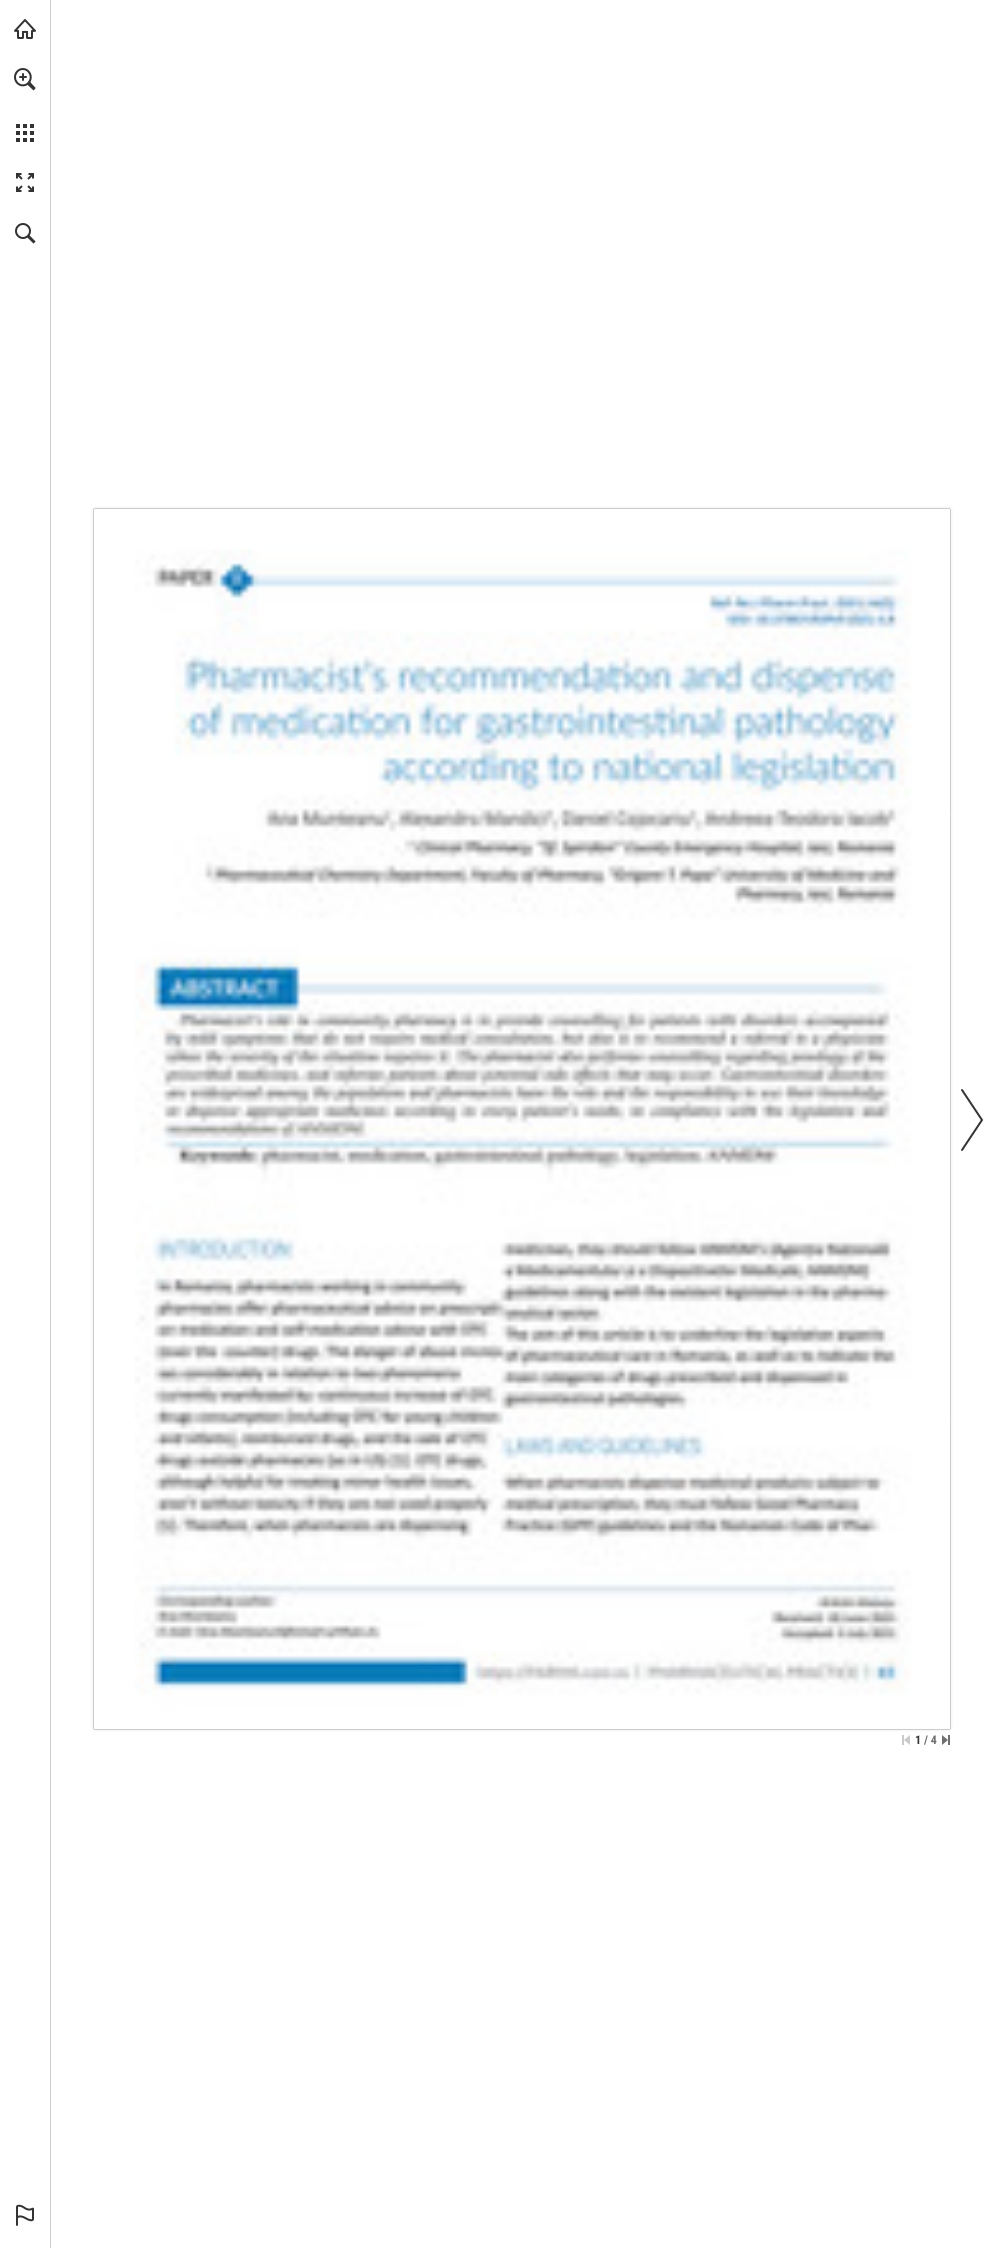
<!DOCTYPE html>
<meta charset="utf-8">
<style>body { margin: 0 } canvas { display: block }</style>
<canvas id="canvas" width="993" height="2248"></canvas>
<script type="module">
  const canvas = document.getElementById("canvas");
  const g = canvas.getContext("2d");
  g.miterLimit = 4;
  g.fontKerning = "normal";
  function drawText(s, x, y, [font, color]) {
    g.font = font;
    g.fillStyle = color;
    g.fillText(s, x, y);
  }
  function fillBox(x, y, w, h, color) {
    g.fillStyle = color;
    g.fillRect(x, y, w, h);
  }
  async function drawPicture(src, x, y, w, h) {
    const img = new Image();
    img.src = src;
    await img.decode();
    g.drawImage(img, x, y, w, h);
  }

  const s1 = ["bold 12px Roboto Condensed", "#333333"];
  const s2 = ["bold 12px Roboto Condensed", "#707070"];

  fillBox(0, 0, 993, 2248, "#FFFFFF");
  g.fillStyle = "rgba(0, 0, 0, 0.2)";
  g.filter = "blur(0.5px)";
  g.beginPath();
  g.rect(1, 0, 50, 2248);
  g.fill();
  g.filter = "none";
  fillBox(0, 0, 50, 2248, "#FFFFFF");
  await drawPicture("pic1.png", 14, 19, 22, 20);
  await drawPicture("pic2.png", 14, 68, 22, 23);
  await drawPicture("pic3.png", 16, 124, 18, 18);
  await drawPicture("pic4.png", 16, 173, 18, 19);
  await drawPicture("pic5.png", 15, 223, 21, 21);
  await drawPicture("pic6.png", 16, 2204, 18, 22);
  g.fillStyle = "rgba(18, 18, 18, 0.05)";
  g.filter = "blur(1px)";
  g.beginPath();
  g.roundRect(92, 507, 860, 1224, 3);
  g.fill();
  g.filter = "none";
  g.fillStyle = "#FFFFFF";
  g.beginPath();
  g.roundRect(93.5, 508.5, 857, 1221, 1.5);
  g.fill();
  g.strokeStyle = "#CCCCCC";
  g.stroke();
  await drawPicture("pic7.png", 134, 509, 816, 1220);
  await drawPicture("pic8.png", 961, 1089, 23, 62);
  await drawPicture("pic9.png", 902, 1735, 8, 10);
  drawText("1", 915, 1744, s1);
  drawText("/ 4", 924, 1744, s2);
  await drawPicture("pic10.png", 942, 1735, 8, 10);
</script>
